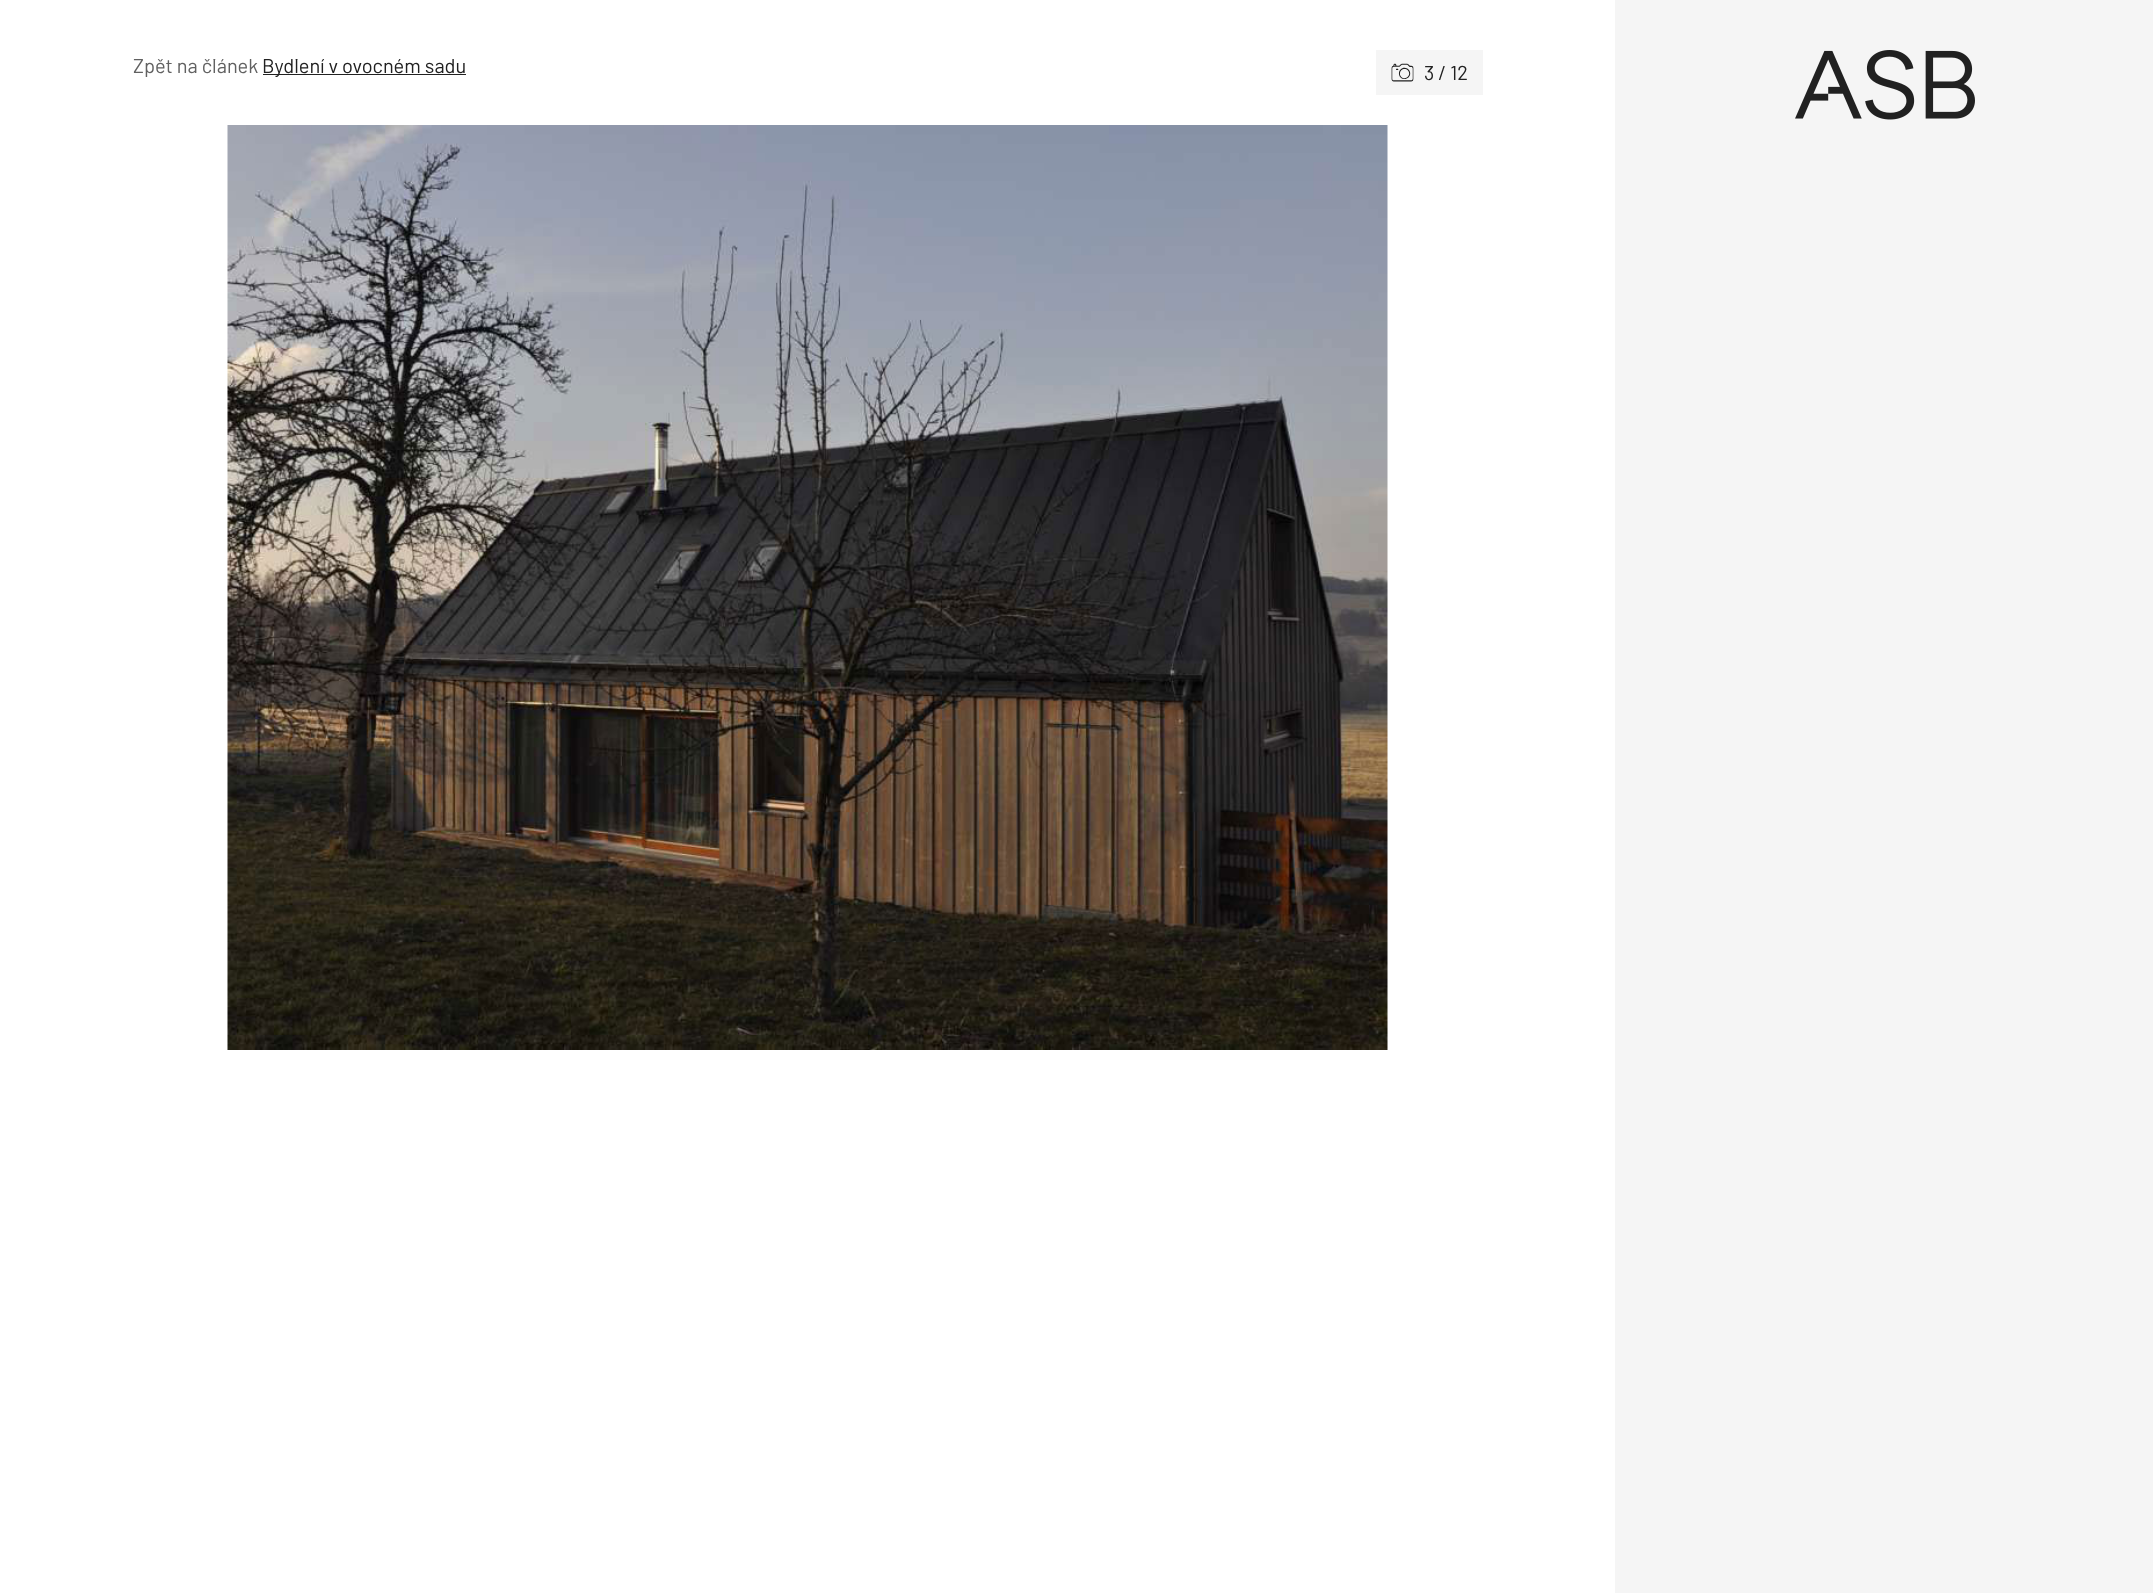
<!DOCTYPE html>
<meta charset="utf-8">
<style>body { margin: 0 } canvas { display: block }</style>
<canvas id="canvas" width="2153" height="1593"></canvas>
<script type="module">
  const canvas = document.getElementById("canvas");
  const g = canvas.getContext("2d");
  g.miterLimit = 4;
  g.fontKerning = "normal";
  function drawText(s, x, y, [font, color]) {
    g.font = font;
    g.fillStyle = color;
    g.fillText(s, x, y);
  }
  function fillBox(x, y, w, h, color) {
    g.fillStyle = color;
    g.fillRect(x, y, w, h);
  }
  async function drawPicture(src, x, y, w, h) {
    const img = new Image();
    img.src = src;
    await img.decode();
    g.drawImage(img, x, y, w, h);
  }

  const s1 = ["20px Barlow", "#616161"];
  const s2 = ["20px Barlow", "#212121"];

  fillBox(0, 0, 2153, 1593, "#FFFFFF");
  drawText("Zpět na článek", 133, 73, s1);
  fillBox(263, 74, 203, 1, "#212121");
  drawText("Bydlení v ovocném sadu", 262, 73, s2);
  fillBox(1376, 50, 107, 45, "#F5F5F5");
  await drawPicture("pic1.png", 1391, 63, 23, 19);
  drawText("3 / 12", 1424, 80, s2);
  await drawPicture("pic2.png", 227, 125, 1161, 925);
  fillBox(1615, 0, 538, 1593, "#F5F5F5");
  await drawPicture("pic3.png", 1795, 50, 180, 70);
</script>
